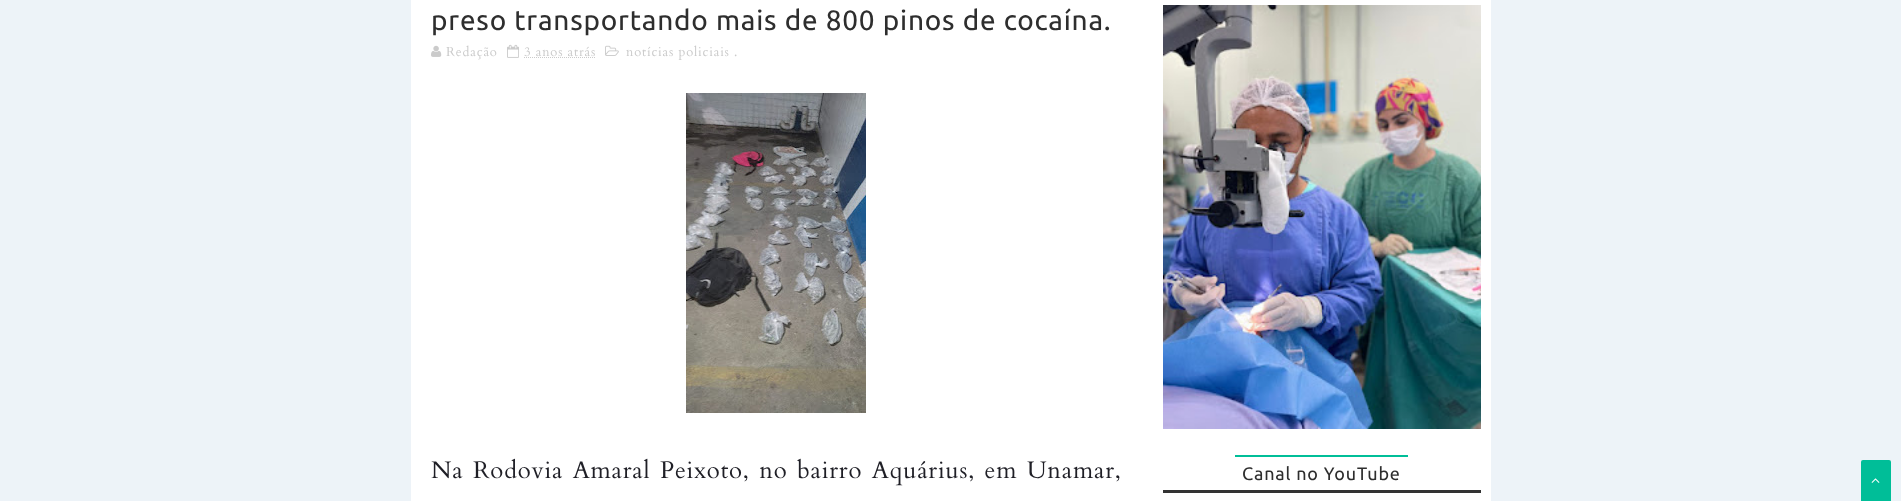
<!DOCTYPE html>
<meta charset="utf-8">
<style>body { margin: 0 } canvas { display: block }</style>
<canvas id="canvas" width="1901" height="501"></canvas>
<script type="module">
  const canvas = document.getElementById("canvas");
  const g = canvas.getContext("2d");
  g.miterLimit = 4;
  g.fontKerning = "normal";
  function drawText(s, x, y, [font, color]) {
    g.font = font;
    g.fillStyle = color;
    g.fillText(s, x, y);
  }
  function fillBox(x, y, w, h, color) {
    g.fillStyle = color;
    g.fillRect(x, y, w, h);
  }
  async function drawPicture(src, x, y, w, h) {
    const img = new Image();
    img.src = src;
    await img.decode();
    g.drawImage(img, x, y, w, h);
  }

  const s1 = ["28px Ubuntu", "#2E2E2E"];
  const s2 = ["13px Cardo", "#CBCBCB"];
  const s3 = ["24px Cardo", "#1F1F26"];
  const s4 = ["18px Ubuntu", "#2E2E2E"];

  fillBox(0, 0, 1901, 501, "#EDF3F8");
  fillBox(411, 0, 1080, 501, "#FFFFFF");
  g.letterSpacing = "0.8px";
  drawText("preso transportando mais de 800 pinos de cocaína.", 431, 30, s1);
  await drawPicture("pic1.png", 431, 45, 11, 12);
  drawText("Redação", 446, 56, s2);
  await drawPicture("pic2.png", 507, 44, 12, 14);
  drawText("3 anos atrás", 524, 56, s2);
  g.beginPath();
  g.moveTo(524, 57.5);
  g.lineTo(596, 57.5);
  g.strokeStyle = "#CBCBCB";
  g.setLineDash([1, 1]);
  g.stroke();
  await drawPicture("pic3.png", 605, 45, 14, 11);
  drawText("notícias policiais .", 626, 56, s2);
  await drawPicture("pic4.png", 686, 93, 180, 320);
  g.wordSpacing = "2.25px";
  drawText("Na Rodovia Amaral Peixoto, no bairro Aquárius, em Unamar,", 431, 478, s3);
  await drawPicture("pic5.png", 1163, 5, 318, 424);
  fillBox(1163, 490, 318, 3, "#333333");
  fillBox(1235, 455, 173, 2, "#00BE98");
  g.wordSpacing = "0px";
  drawText("Canal no YouTube", 1242, 480, s4);
  g.fillStyle = "#00BE98";
  g.beginPath();
  g.roundRect(1861, 460, 30, 41, [2, 2, 0, 0]);
  g.fill();
  await drawPicture("pic6.png", 1871, 478, 9, 5);
</script>
